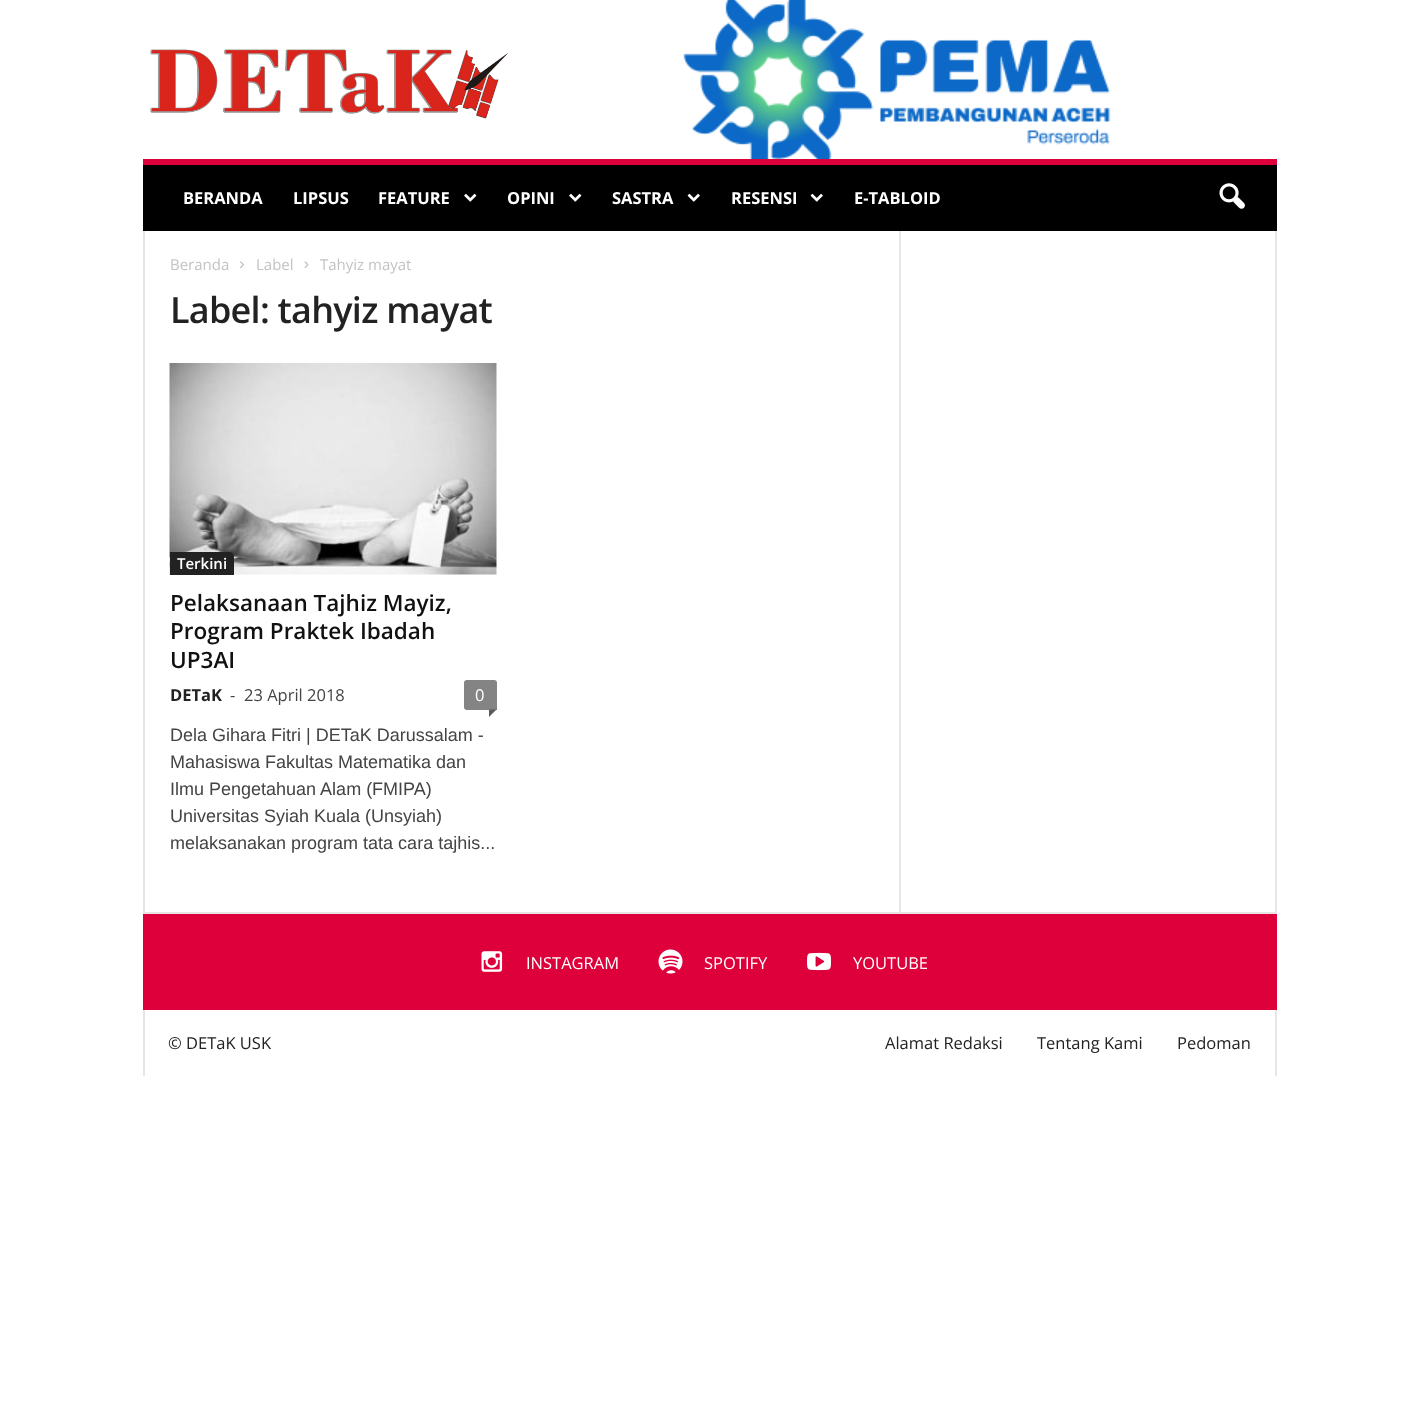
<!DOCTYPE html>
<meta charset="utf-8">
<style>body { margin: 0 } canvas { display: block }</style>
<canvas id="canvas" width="1418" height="1428"></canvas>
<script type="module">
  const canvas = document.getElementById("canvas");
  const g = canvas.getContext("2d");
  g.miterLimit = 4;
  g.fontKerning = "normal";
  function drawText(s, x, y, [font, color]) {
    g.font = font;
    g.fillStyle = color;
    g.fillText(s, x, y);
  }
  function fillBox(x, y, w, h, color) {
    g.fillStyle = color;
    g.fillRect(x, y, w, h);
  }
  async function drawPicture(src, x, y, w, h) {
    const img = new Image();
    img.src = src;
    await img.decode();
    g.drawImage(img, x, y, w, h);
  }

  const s1 = ["bold 16.5px Open Sans", "#FFFFFF"];
  const s2 = ["15px Open Sans", "#C3C3C3"];
  const s3 = ["600 36px Open Sans", "#222222"];
  const s4 = ["600 15px Open Sans", "#FFFFFF"];
  const s5 = ["600 22.5px Open Sans", "#111111"];
  const s6 = ["bold 16.5px Open Sans", "#222222"];
  const s7 = ["16.5px Open Sans", "#444444"];
  const s8 = ["16.5px Open Sans", "#FFFFFF"];
  const s9 = ["18px Liberation Sans", "#444444"];
  const s10 = ["16.5px Open Sans", "#222222"];

  fillBox(0, 0, 1418, 1428, "#FFFFFF");
  await drawPicture("pic1.png", 150, 49, 358, 70);
  await drawPicture("pic2.png", 683, 0, 428, 159);
  fillBox(143, 165, 1134, 66, "#000000");
  fillBox(143, 159, 1134, 6, "#DD003B");
  drawText("BERANDA", 183, 204, s1);
  drawText("LIPSUS", 293, 204, s1);
  drawText("FEATURE", 378, 204, s1);
  await drawPicture("pic3.png", 464, 193, 13, 9);
  drawText("OPINI", 507, 204, s1);
  await drawPicture("pic3.png", 569, 193, 13, 9);
  drawText("SASTRA", 612, 204, s1);
  await drawPicture("pic4.png", 687, 193, 13, 9);
  drawText("RESENSI", 731, 204, s1);
  await drawPicture("pic4.png", 810, 193, 13, 9);
  drawText("E-TABLOID", 854, 204, s1);
  await drawPicture("pic5.png", 1219, 183, 26, 26);
  fillBox(143, 912, 1134, 2, "#E6E6E6");
  fillBox(143, 231, 2, 681, "#E6E6E6");
  drawText("Beranda", 170, 270, s2);
  await drawPicture("pic6.png", 240, 261, 4, 8);
  drawText("Label", 256, 270, s2);
  await drawPicture("pic7.png", 304, 261, 5, 8);
  drawText("Tahyiz mayat", 320, 270, s2);
  g.letterSpacing = "-0.75px";
  drawText("Label: tahyiz mayat", 170, 323, s3);
  await drawPicture("pic8.png", 169, 363, 328, 212);
  g.beginPath();
  g.roundRect(170, 552, 64, 23, [0, 5, 0, 0]);
  g.fill();
  g.letterSpacing = "0px";
  drawText("Terkini", 177, 569, s4);
  drawText("Pelaksanaan Tajhiz Mayiz,", 170, 611, s5);
  drawText("Program Praktek Ibadah", 170, 639, s5);
  drawText("UP3AI", 170, 668, s5);
  drawText("DETaK", 170, 701, s6);
  drawText("-", 230, 701, s7);
  drawText("23 April 2018", 244, 701, s7);
  g.fillStyle = "#848484";
  g.beginPath();
  g.roundRect(464, 680, 33, 30, [3, 3, 0, 3]);
  g.fill();
  drawText("0", 475, 701, s8);
  g.fillStyle = "#5B5B5B";
  g.beginPath();
  g.moveTo(489, 709.5);
  g.lineTo(496.5, 709.5);
  g.lineTo(489, 717);
  g.closePath();
  g.fill();
  drawText("Dela Gihara Fitri | DETaK Darussalam -", 170, 741, s9);
  drawText("Mahasiswa Fakultas Matematika dan", 170, 768, s9);
  drawText("Ilmu Pengetahuan Alam (FMIPA)", 170, 795, s9);
  drawText("Universitas Syiah Kuala (Unsyiah)", 170, 822, s9);
  drawText("melaksanakan program tata cara tajhis...", 170, 849, s9);
  fillBox(899, 231, 2, 681, "#E6E6E6");
  fillBox(1275, 231, 2, 681, "#E6E6E6");
  fillBox(143, 914, 1134, 96, "#DD003B");
  await drawPicture("pic9.png", 481, 951, 22, 21);
  drawText("INSTAGRAM", 526, 969, s8);
  await drawPicture("pic10.png", 658, 949, 25, 25);
  drawText("SPOTIFY", 704, 969, s8);
  await drawPicture("pic11.png", 807, 952, 24, 19);
  drawText("YOUTUBE", 853, 969, s8);
  fillBox(143, 1010, 2, 66, "#E6E6E6");
  drawText("© DETaK USK", 168, 1049, s10);
  drawText("Alamat Redaksi", 885, 1049, s10);
  drawText("Tentang Kami", 1037, 1049, s10);
  drawText("Pedoman", 1177, 1049, s10);
  fillBox(1275, 1010, 2, 66, "#E6E6E6");
</script>
